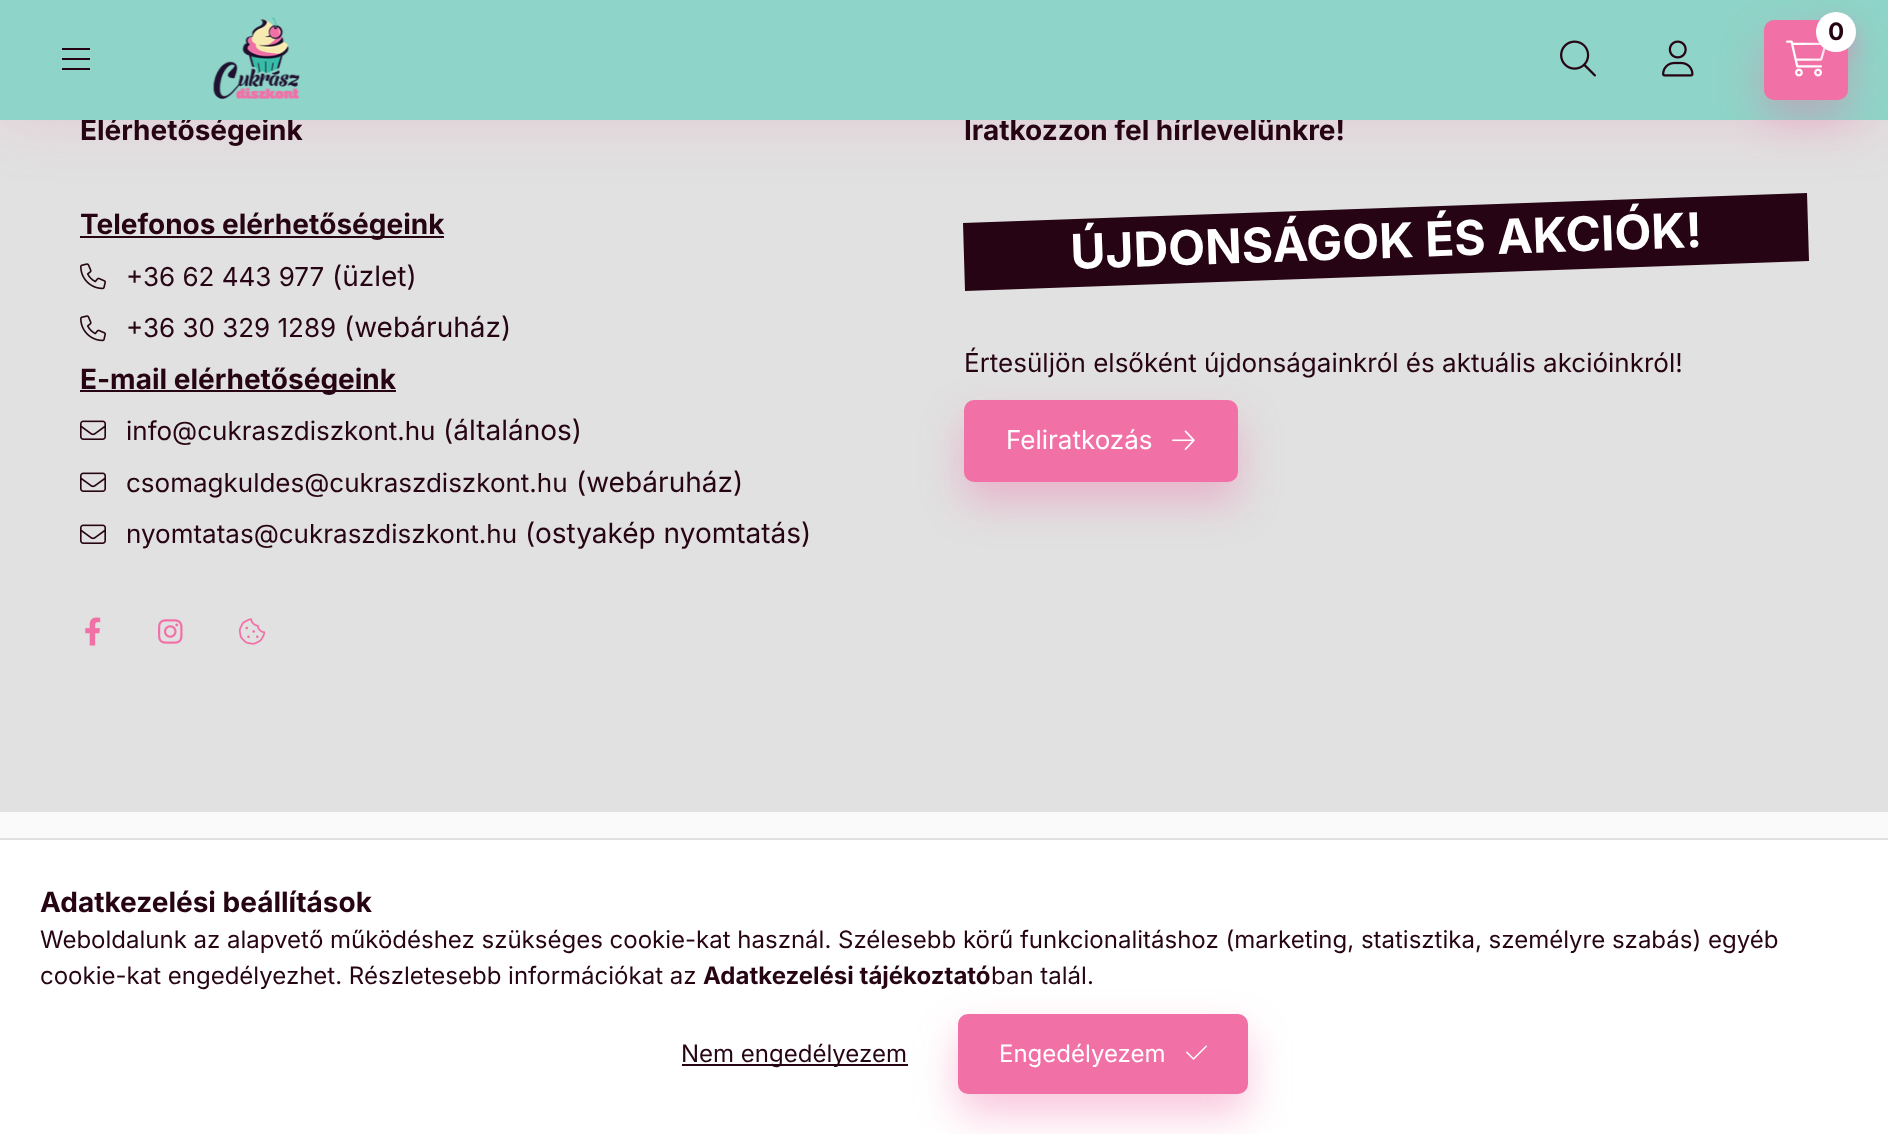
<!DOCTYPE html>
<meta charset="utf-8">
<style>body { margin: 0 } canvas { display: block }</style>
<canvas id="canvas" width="1888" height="1134"></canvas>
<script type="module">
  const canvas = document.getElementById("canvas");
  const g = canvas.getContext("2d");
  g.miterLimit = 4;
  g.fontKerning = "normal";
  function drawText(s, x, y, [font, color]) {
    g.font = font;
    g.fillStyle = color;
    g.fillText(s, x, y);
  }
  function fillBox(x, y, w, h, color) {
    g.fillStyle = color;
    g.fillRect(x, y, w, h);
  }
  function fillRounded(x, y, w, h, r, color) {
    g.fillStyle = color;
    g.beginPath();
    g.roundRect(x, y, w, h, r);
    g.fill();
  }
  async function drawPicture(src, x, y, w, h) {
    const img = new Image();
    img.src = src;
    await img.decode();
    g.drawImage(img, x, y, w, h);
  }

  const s1 = ["bold 28px Inter", "#260413"];
  const s2 = ["bold 24px Inter", "#260413"];
  const s3 = ["26px Inter", "#260413"];
  const s4 = ["28px Inter", "#260413"];
  const s5 = ["26px Inter", "#FFFFFF"];
  const s6 = ["24px Inter", "#260413"];
  const s7 = ["24px Inter", "#FFFFFF"];

  fillBox(0, 0, 1888, 1134, "#FAFAFA");
  fillBox(0, 120, 1888, 692, "#E1E1E1");
  g.fillStyle = "#260413";
  g.beginPath();
  g.moveTo(963, 223);
  g.lineTo(1807, 193);
  g.lineTo(1809, 261);
  g.lineTo(965, 291);
  g.closePath();
  g.fill();
  g.fillStyle = "rgba(241, 113, 167, 0.2)";
  g.filter = "blur(30px)";
  g.beginPath();
  g.rect(0, 0, 1888, 120);
  g.fill();
  g.filter = "none";
  drawText("Elérhetőségeink", 80, 140, s1);
  drawText("Iratkozzon fel hírlevelünkre!", 964, 140, s1);
  fillBox(0, 0, 1888, 120, "#8FD4C8");
  fillBox(62, 48, 28, 2, "#260413");
  fillBox(62, 58, 28, 2, "#260413");
  fillBox(62, 68, 28, 2, "#260413");
  await drawPicture("pic1.png", 213, 17, 87, 83);
  g.fillStyle = "rgba(241, 113, 167, 0.4)";
  g.filter = "blur(20px)";
  g.beginPath();
  g.roundRect(1764, 40, 84, 80, 10);
  g.fill();
  g.filter = "none";
  fillRounded(1764, 20, 84, 80, 10, "#F171A7");
  await drawPicture("pic2.png", 1786, 40, 40, 37);
  g.fillStyle = "rgba(241, 113, 167, 0.4)";
  g.filter = "blur(10px)";
  g.beginPath();
  g.roundRect(1816, 22, 40, 40, 20);
  g.fill();
  g.filter = "none";
  g.fillStyle = "#FFFFFF";
  g.beginPath();
  g.arc(1836, 32, 20, 0, Math.PI * 2);
  g.fill();
  drawText("0", 1828, 40, s2);
  await drawPicture("pic3.png", 1560, 40, 36, 37);
  await drawPicture("pic4.png", 1662, 40, 32, 37);
  fillBox(80, 236, 364, 2, "#260413");
  drawText("Telefonos elérhetőségeink", 80, 234, s1);
  await drawPicture("pic5.png", 80, 263, 26, 27);
  drawText("+36 62 443 977", 126, 286, s3);
  drawText("(üzlet)", 332, 286, s4);
  await drawPicture("pic5.png", 80, 315, 26, 27);
  drawText("+36 30 329 1289", 126, 337, s3);
  drawText("(webáruház)", 344, 337, s4);
  fillBox(80, 390, 316, 2, "#260413");
  drawText("E-mail elérhetőségeink", 80, 389, s1);
  await drawPicture("pic6.png", 80, 420, 26, 20);
  drawText("info@cukraszdiszkont.hu", 126, 440, s3);
  drawText("(általános)", 443, 440, s4);
  await drawPicture("pic6.png", 80, 472, 26, 20);
  drawText("csomagkuldes@cukraszdiszkont.hu", 126, 492, s3);
  drawText("(webáruház)", 576, 492, s4);
  await drawPicture("pic6.png", 80, 524, 26, 20);
  drawText("nyomtatas@cukraszdiszkont.hu", 126, 543, s3);
  drawText("(ostyakép nyomtatás)", 525, 543, s4);
  await drawPicture("pic7.png", 85, 617, 16, 29);
  await drawPicture("pic8.png", 158, 619, 25, 25);
  await drawPicture("pic9.png", 238, 618, 28, 27);
  g.font = "bold 48px Inter";
  g.fillStyle = "#FFFFFF";
  g.save();
  g.translate(1071, 269);
  g.rotate(-2 * Math.PI / 180);
  g.fillText("ÚJDONSÁGOK ÉS AKCIÓK!", 0, 0);
  g.restore();
  drawText("Értesüljön elsőként újdonságainkról és aktuális akcióinkról!", 964, 372, s3);
  g.fillStyle = "rgba(241, 113, 167, 0.4)";
  g.filter = "blur(20px)";
  g.beginPath();
  g.roundRect(964, 420, 274, 82, 10);
  g.fill();
  g.filter = "none";
  g.fillStyle = "#F171A7";
  g.beginPath();
  g.roundRect(965, 401, 272, 80, 9);
  g.fill();
  g.strokeStyle = "#F171A7";
  g.lineWidth = 2;
  g.stroke();
  drawText("Feliratkozás", 1006, 449, s5);
  await drawPicture("pic10.png", 1172, 430, 23, 20);
  fillBox(0, 840, 1888, 294, "#FFFFFF");
  fillBox(0, 838, 1888, 2, "#E1E1E1");
  drawText("Adatkezelési beállítások", 40, 912, s1);
  drawText("Weboldalunk az alapvető működéshez szükséges cookie-kat használ. Szélesebb körű funkcionalitáshoz (marketing, statisztika, személyre szabás) egyéb", 40, 948, s6);
  drawText("cookie-kat engedélyezhet. Részletesebb információkat az", 40, 984, s6);
  drawText("Adatkezelési tájékoztató", 703, 984, s2);
  drawText("ban talál.", 991, 984, s6);
  fillBox(682, 1064, 226, 2, "#260413");
  drawText("Nem engedélyezem", 681, 1062, s6);
  g.fillStyle = "rgba(241, 113, 167, 0.4)";
  g.filter = "blur(20px)";
  g.beginPath();
  g.roundRect(958, 1034, 290, 80, 10);
  g.fill();
  g.filter = "none";
  g.fillStyle = "#F171A7";
  g.beginPath();
  g.roundRect(959, 1015, 288, 78, 9);
  g.fill();
  g.stroke();
  drawText("Engedélyezem", 999, 1062, s7);
  await drawPicture("pic11.png", 1186, 1045, 21, 15);
</script>
